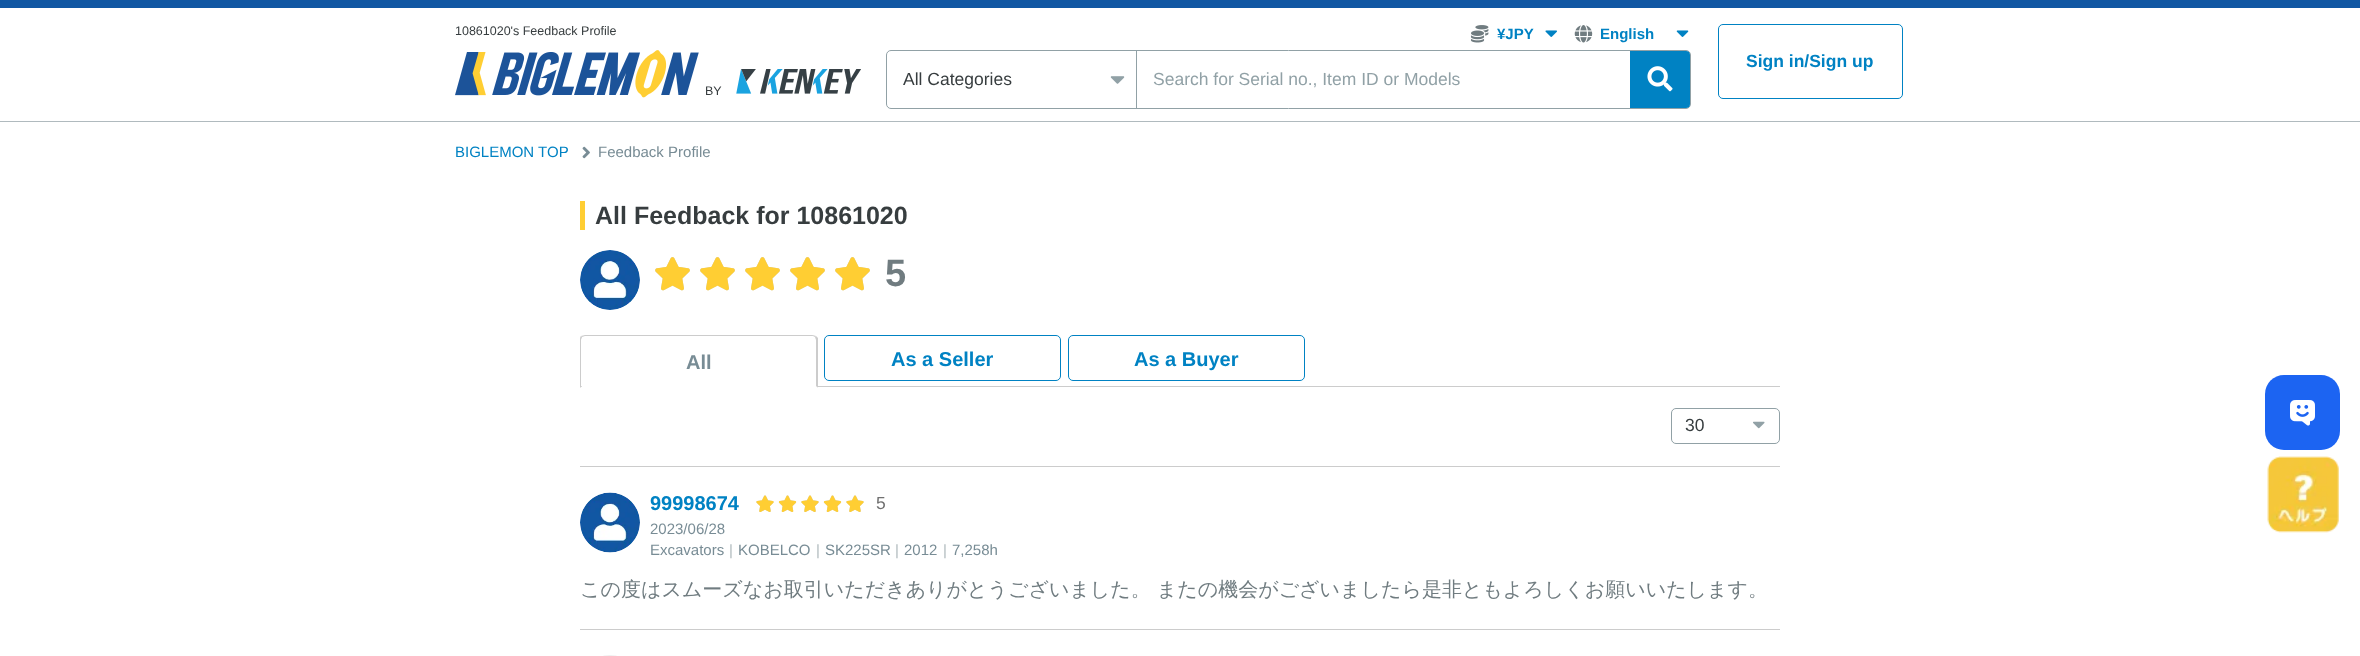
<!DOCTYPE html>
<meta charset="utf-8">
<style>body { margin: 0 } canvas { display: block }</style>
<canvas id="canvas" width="2360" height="656"></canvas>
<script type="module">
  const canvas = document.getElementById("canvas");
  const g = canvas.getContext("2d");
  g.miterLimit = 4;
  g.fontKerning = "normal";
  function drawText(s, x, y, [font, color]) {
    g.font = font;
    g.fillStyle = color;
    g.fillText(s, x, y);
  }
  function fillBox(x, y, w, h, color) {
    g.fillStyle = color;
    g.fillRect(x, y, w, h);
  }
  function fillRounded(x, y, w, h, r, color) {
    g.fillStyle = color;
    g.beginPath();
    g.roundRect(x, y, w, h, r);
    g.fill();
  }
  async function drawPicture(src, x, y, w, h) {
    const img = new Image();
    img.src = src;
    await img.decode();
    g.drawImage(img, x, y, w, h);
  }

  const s1 = ["12.5px Liberation Sans", "#373D3F"];
  const s2 = ["bold 15px Liberation Sans", "#0082C3"];
  const s3 = ["17.5px Liberation Sans", "#373D3F"];
  const s4 = ["17.5px Liberation Sans", "#91A1A6"];
  const s5 = ["bold 17.5px Liberation Sans", "#0082C3"];
  const s6 = ["15px Liberation Sans", "#0082C3"];
  const s7 = ["15px Liberation Sans", "#788C95"];
  const s8 = ["bold 25px Liberation Sans", "#373D3F"];
  const s9 = ["bold 38px Liberation Sans", "#707C80"];
  const s10 = ["bold 20px Liberation Sans", "#788C95"];
  const s11 = ["bold 20px Liberation Sans", "#0082C3"];
  const s12 = ["17.5px Liberation Sans", "#707070"];
  const s13 = ["15px Liberation Sans", "#B0BABE"];
  const s14 = ["500 20px WenQuanYi Zen Hei", "#707C80"];

  fillBox(0, 0, 2360, 656, "#FFFFFF");
  fillBox(0, 0, 2360, 8, "#1157A3");
  fillBox(0, 121, 2360, 1, "#B0BABE");
  drawText("10861020's Feedback Profile", 455, 35, s1);
  await drawPicture("pic1.png", 1470, 25, 19, 18);
  drawText("¥JPY", 1497, 39, s2);
  await drawPicture("pic2.png", 1545, 30, 12, 7);
  await drawPicture("pic3.png", 1574, 25, 19, 18);
  drawText("English", 1600, 39, s2);
  await drawPicture("pic4.png", 1676, 30, 13, 7);
  g.beginPath();
  g.roundRect(886.5, 50.5, 804, 58, 4.5);
  g.strokeStyle = "#91A1A6";
  g.stroke();
  fillBox(1136, 51, 1, 57, "#91A1A6");
  drawText("All Categories", 903, 85, s3);
  await drawPicture("pic5.png", 1110, 76, 15, 8);
  drawText("Search for Serial no., Item ID or Models", 1153, 85, s4);
  g.fillStyle = "#0082C3";
  g.beginPath();
  g.roundRect(1630, 51, 60, 57, [0, 4, 4, 0]);
  g.fill();
  await drawPicture("pic6.png", 1647, 66, 26, 26);
  g.beginPath();
  g.roundRect(1718.5, 24.5, 184, 74, 4.5);
  g.strokeStyle = "#0082C3";
  g.stroke();
  drawText("Sign in/Sign up", 1746, 67, s5);
  await drawPicture("pic7.png", 455, 50, 244, 48);
  drawText("BY", 705, 95, s1);
  await drawPicture("pic8.png", 736, 69, 125, 25);
  drawText("BIGLEMON TOP", 455, 157, s6);
  await drawPicture("pic9.png", 582, 146, 8, 13);
  drawText("Feedback Profile", 598, 157, s7);
  fillBox(580, 201, 5, 29, "#FFCE33");
  drawText("All Feedback for 10861020", 595, 224, s8);
  await drawPicture("pic10.png", 580, 250, 60, 60);
  await drawPicture("pic11.png", 655, 257, 215, 34);
  await drawPicture("pic12.png", 655, 257, 215, 34);
  drawText("5", 885, 286, s9);
  g.fillStyle = "#CCCCCC";
  g.beginPath();
  g.moveTo(585, 335);
  g.bezierCurveTo(584, 335, 582, 336, 581, 336);
  g.lineTo(582, 337);
  g.lineTo(585, 336);
  g.lineTo(813, 336);
  g.lineTo(815, 337);
  g.lineTo(816, 336);
  g.bezierCurveTo(815, 336, 814, 335, 812, 335);
  g.closePath();
  g.fill();
  fillBox(580, 386, 1200, 1, "#CCCCCC");
  g.beginPath();
  g.moveTo(816, 336);
  g.lineTo(818, 338);
  g.lineTo(818, 388);
  g.lineTo(816, 386);
  g.lineTo(816, 340);
  g.lineTo(815, 337);
  g.closePath();
  g.fill();
  g.fillStyle = "#FFFFFF";
  g.beginPath();
  g.moveTo(818, 388);
  g.lineTo(816, 386);
  g.lineTo(582, 386);
  g.lineTo(580, 388);
  g.closePath();
  g.fill();
  g.fillStyle = "#CCCCCC";
  g.beginPath();
  g.moveTo(580, 388);
  g.lineTo(582, 386);
  g.lineTo(581, 386);
  g.lineTo(581, 340);
  g.bezierCurveTo(581, 339, 582, 338, 582, 337);
  g.lineTo(581, 336);
  g.bezierCurveTo(580, 337, 580, 338, 580, 340);
  g.closePath();
  g.fill();
  drawText("All", 686, 369, s10);
  g.beginPath();
  g.roundRect(824.5, 335.5, 236, 45, 4.5);
  g.stroke();
  drawText("As a Seller", 891, 366, s11);
  g.beginPath();
  g.roundRect(1068.5, 335.5, 236, 45, 4.5);
  g.stroke();
  drawText("As a Buyer", 1134, 366, s11);
  fillBox(580, 466, 1200, 1, "#CCCCCC");
  g.beginPath();
  g.roundRect(1671.5, 408.5, 108, 35, 4.5);
  g.strokeStyle = "#91A1A6";
  g.stroke();
  drawText("30", 1685, 431, s3);
  await drawPicture("pic13.png", 1753, 421, 12, 8);
  fillBox(580, 629, 1200, 1, "#CCCCCC");
  await drawPicture("pic14.png", 580, 492, 60, 61);
  drawText("99998674", 650, 510, s11);
  await drawPicture("pic15.png", 756, 495, 108, 17);
  await drawPicture("pic16.png", 756, 495, 108, 17);
  drawText("5", 876, 509, s12);
  drawText("2023/06/28", 650, 534, s7);
  drawText("Excavators", 650, 555, s7);
  drawText("|", 729, 555, s13);
  drawText("KOBELCO", 738, 555, s7);
  drawText("|", 816, 555, s13);
  drawText("SK225SR", 825, 555, s7);
  drawText("|", 895, 555, s13);
  drawText("2012", 904, 555, s7);
  drawText("|", 943, 555, s13);
  drawText("7,258h", 952, 555, s7);
  drawText("この度はスムーズなお取引いただきありがとうございました。 またの機会がございましたら是非ともよろしくお願いいたします。", 580, 596, s14);
  await drawPicture("pic17.png", 603, 655, 14, 1);
  fillRounded(2265, 375, 75, 75, 19, "#1C64F2");
  await drawPicture("pic18.png", 2290, 400, 25, 26);
  await drawPicture("pic19.png", 2267, 456, 72, 77);
</script>
